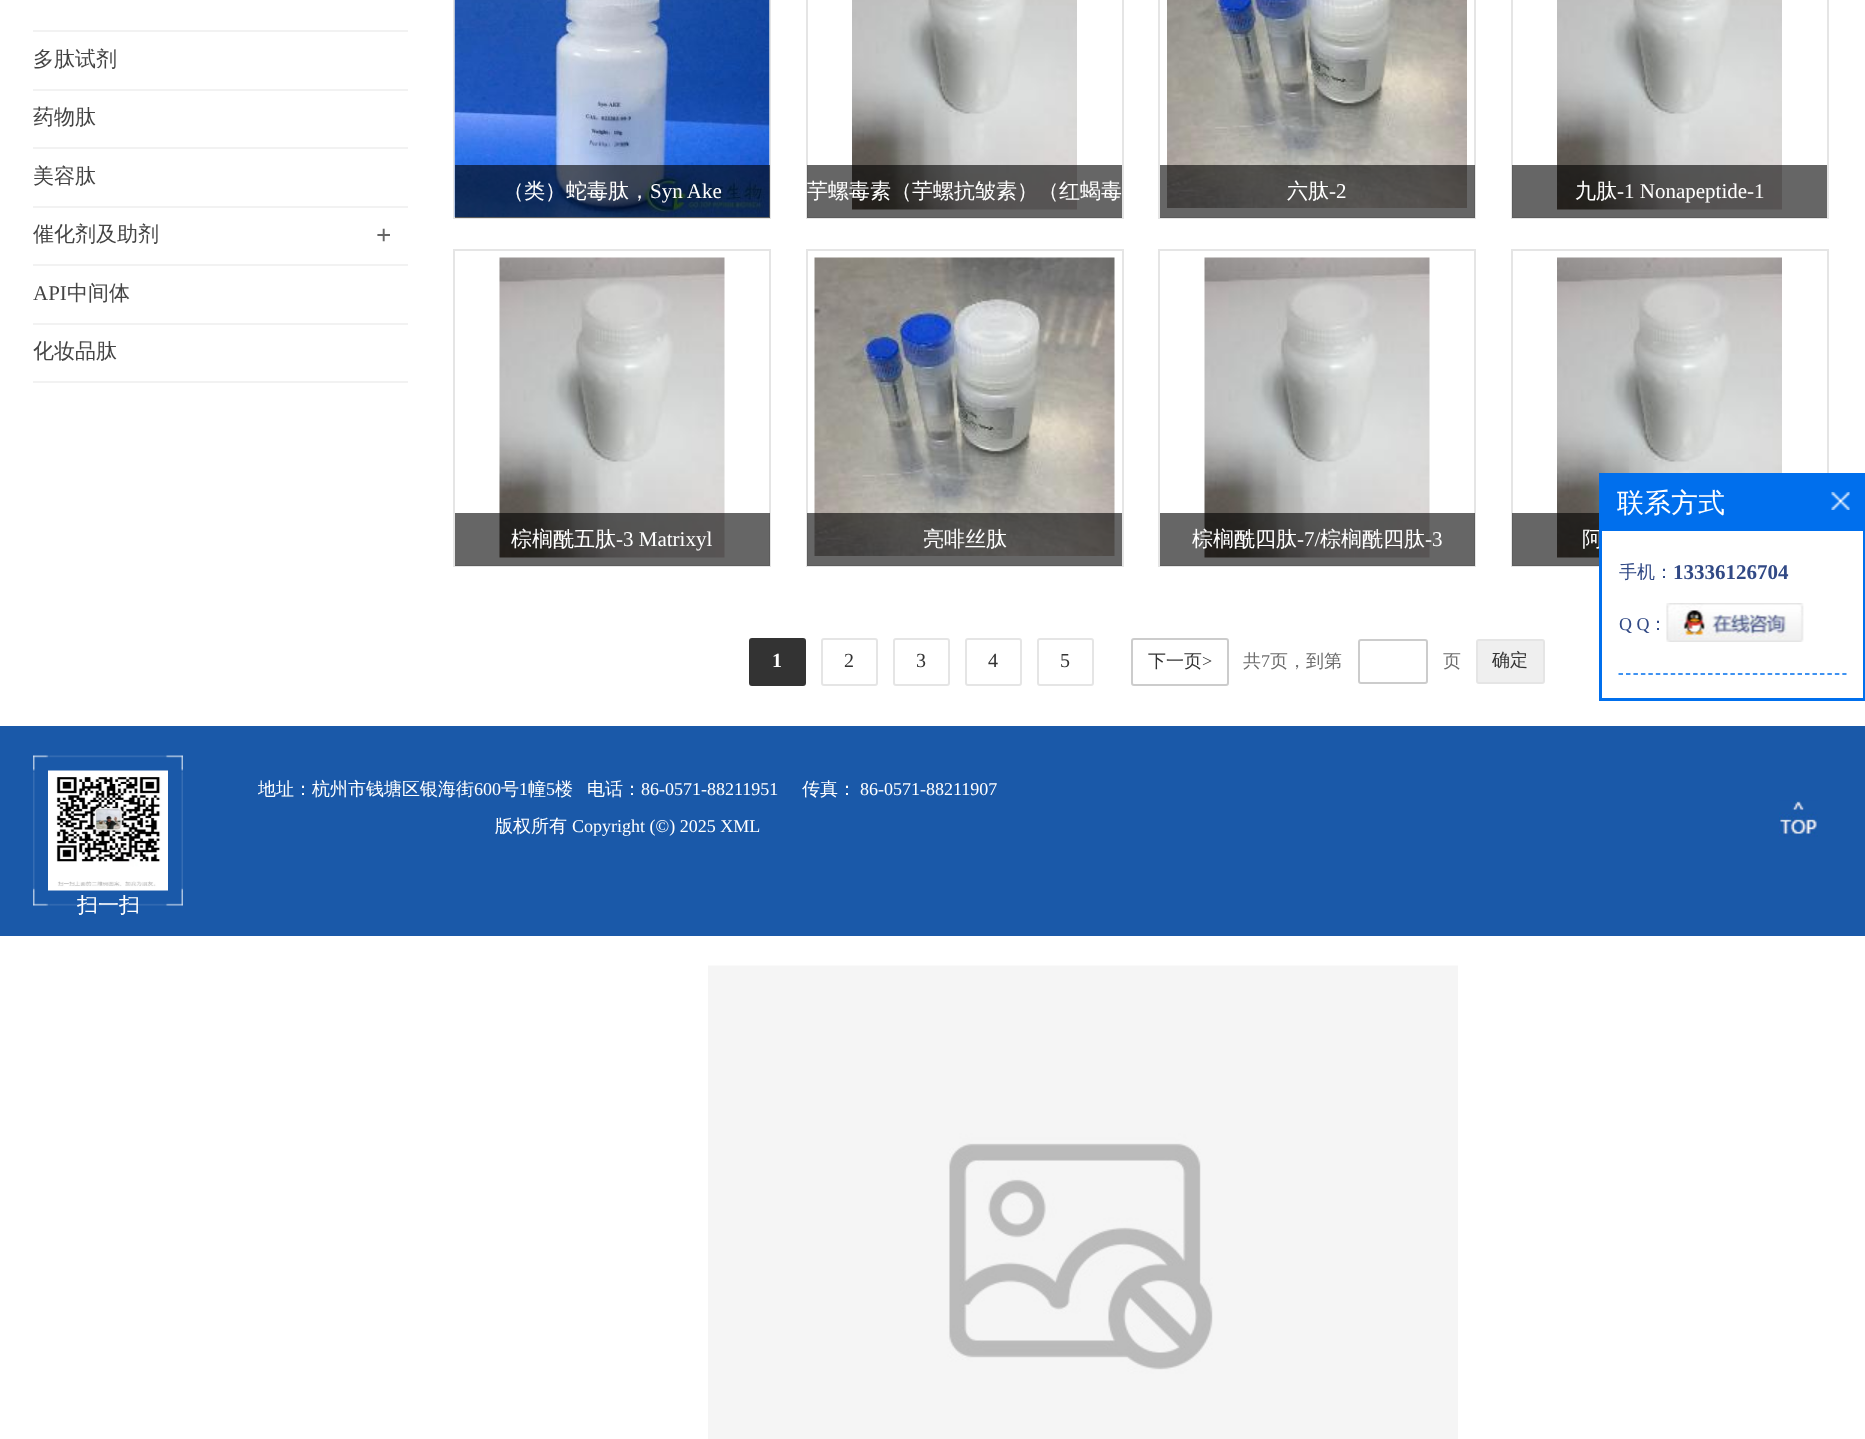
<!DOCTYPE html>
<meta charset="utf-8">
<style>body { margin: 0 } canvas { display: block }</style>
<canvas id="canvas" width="1865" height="1439"></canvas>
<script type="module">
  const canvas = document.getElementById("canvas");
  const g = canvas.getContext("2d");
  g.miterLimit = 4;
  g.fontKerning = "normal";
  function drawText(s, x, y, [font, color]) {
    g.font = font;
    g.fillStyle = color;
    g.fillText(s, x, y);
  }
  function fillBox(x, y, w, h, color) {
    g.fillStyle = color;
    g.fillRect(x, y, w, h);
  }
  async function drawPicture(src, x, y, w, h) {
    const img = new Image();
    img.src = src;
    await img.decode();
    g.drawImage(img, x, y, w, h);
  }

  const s1 = ["500 21px WenQuanYi Zen Hei", "#444444"];
  const s2 = ["bold 27px Liberation Serif", "#666666"];
  const s3 = ["21px Liberation Serif", "#444444"];
  const s4 = ["500 21px WenQuanYi Zen Hei", "#FFFFFF"];
  const s5 = ["21px Liberation Serif", "#FFFFFF"];
  const s6 = ["bold 20px Liberation Serif", "#FFFFFF"];
  const s7 = ["20px Liberation Serif", "#333333"];
  const s8 = ["500 18px WenQuanYi Zen Hei", "#333333"];
  const s9 = ["18px Liberation Serif", "#333333"];
  const s10 = ["500 18px WenQuanYi Zen Hei", "#6D6D6D"];
  const s11 = ["18px Liberation Serif", "#6D6D6D"];
  const s12 = ["500 27px WenQuanYi Zen Hei", "#FFFFFF"];
  const s13 = ["500 18px WenQuanYi Zen Hei", "#314985"];
  const s14 = ["bold 21px Liberation Serif", "#314985"];
  const s15 = ["18px Liberation Serif", "#314985"];
  const s16 = ["500 18px WenQuanYi Zen Hei", "#FFFFFF"];
  const s17 = ["18px Liberation Serif", "#FFFFFF"];

  fillBox(0, 0, 1865, 1439, "#FFFFFF");
  fillBox(33, 30, 375, 2, "#F2F2F2");
  fillBox(33, 89, 375, 2, "#F2F2F2");
  drawText("多肽试剂", 33, 66, s1);
  fillBox(33, 147, 375, 2, "#F2F2F2");
  drawText("药物肽", 33, 124, s1);
  fillBox(33, 206, 375, 2, "#F2F2F2");
  drawText("美容肽", 33, 183, s1);
  fillBox(33, 264, 375, 2, "#F2F2F2");
  drawText("催化剂及助剂", 33, 241, s1);
  drawText("+", 376, 244, s2);
  fillBox(33, 323, 375, 2, "#F2F2F2");
  drawText("API", 33, 300, s3);
  drawText("中间体", 67, 300, s1);
  fillBox(33, 381, 375, 2, "#F2F2F2");
  drawText("化妆品肽", 33, 358, s1);
  g.strokeStyle = "#E5E5E5";
  g.lineWidth = 2;
  g.strokeRect(454, -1, 316, 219);
  await drawPicture("pic1.png", 454, 0, 316, 217);
  fillBox(455, 165, 315, 53, "rgba(0, 0, 0, 0.6)");
  drawText("（类）蛇毒肽，", 503, 198, s4);
  drawText("Syn Ake", 650, 198, s5);
  g.strokeRect(807, -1, 316, 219);
  await drawPicture("pic2.png", 852, 0, 225, 210);
  fillBox(807, 165, 315, 53, "rgba(0, 0, 0, 0.6)");
  drawText("芋螺毒素（芋螺抗皱素）（红蝎毒", 807, 198, s4);
  g.strokeRect(1159, -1, 316, 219);
  await drawPicture("pic3.png", 1167, 0, 300, 208);
  fillBox(1160, 165, 315, 53, "rgba(0, 0, 0, 0.6)");
  drawText("六肽", 1287, 198, s4);
  drawText("-2", 1329, 198, s5);
  g.strokeRect(1512, -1, 316, 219);
  await drawPicture("pic2.png", 1557, 0, 225, 210);
  fillBox(1512, 165, 315, 53, "rgba(0, 0, 0, 0.6)");
  drawText("九肽", 1575, 198, s4);
  drawText("-1 Nonapeptide-1", 1617, 198, s5);
  g.strokeRect(454, 250, 316, 316);
  await drawPicture("pic4.png", 499, 257, 226, 301);
  fillBox(455, 513, 315, 53, "rgba(0, 0, 0, 0.6)");
  drawText("棕榈酰五肽", 511, 546, s4);
  drawText("-3 Matrixyl", 616, 546, s5);
  g.strokeRect(807, 250, 316, 316);
  await drawPicture("pic5.png", 814, 257, 301, 299);
  fillBox(807, 513, 315, 53, "rgba(0, 0, 0, 0.6)");
  drawText("亮啡丝肽", 923, 546, s4);
  g.strokeRect(1159, 250, 316, 316);
  await drawPicture("pic6.png", 1204, 257, 226, 301);
  fillBox(1160, 513, 315, 53, "rgba(0, 0, 0, 0.6)");
  drawText("棕榈酰四肽", 1192, 546, s4);
  drawText("-7/", 1297, 546, s5);
  drawText("棕榈酰四肽", 1320, 546, s4);
  drawText("-3", 1425, 546, s5);
  g.strokeRect(1512, 250, 316, 316);
  await drawPicture("pic7.png", 1557, 257, 225, 301);
  fillBox(1512, 513, 87, 53, "rgba(0, 0, 0, 0.6)");
  drawText("阿", 1582, 546, s4);
  g.fillStyle = "#333333";
  g.beginPath();
  g.roundRect(750, 639, 55, 46, 2);
  g.fill();
  g.strokeStyle = "#333333";
  g.stroke();
  drawText("1", 772, 667, s6);
  g.beginPath();
  g.roundRect(822, 639, 55, 46, 2);
  g.strokeStyle = "#E5E5E5";
  g.stroke();
  drawText("2", 844, 667, s7);
  g.beginPath();
  g.roundRect(894, 639, 55, 46, 2);
  g.stroke();
  drawText("3", 916, 667, s7);
  g.beginPath();
  g.roundRect(966, 639, 55, 46, 2);
  g.stroke();
  drawText("4", 988, 667, s7);
  g.beginPath();
  g.roundRect(1038, 639, 55, 46, 2);
  g.stroke();
  drawText("5", 1060, 667, s7);
  g.beginPath();
  g.roundRect(1132, 639, 96, 46, 2);
  g.strokeStyle = "#CCCCCC";
  g.stroke();
  drawText("下一页", 1148, 667, s8);
  drawText(">", 1202, 667, s9);
  drawText("共", 1243, 667, s10);
  drawText("7", 1261, 667, s11);
  drawText("页，到第", 1270, 667, s10);
  g.beginPath();
  g.roundRect(1359, 640, 68, 43, 2);
  g.stroke();
  drawText("页", 1443, 667, s10);
  g.fillStyle = "#EFEFEF";
  g.beginPath();
  g.roundRect(1477, 640, 67, 43, 2);
  g.fill();
  g.strokeStyle = "#E5E5E5";
  g.stroke();
  drawText("确定", 1492, 666, s8);
  fillBox(1599, 473, 266, 228, "#006FED");
  drawText("联系方式", 1617, 512, s12);
  await drawPicture("pic8.png", 1831, 492, 19, 18);
  fillBox(1602, 531, 261, 167, "#FFFFFF");
  g.beginPath();
  g.moveTo(1618.5, 674);
  g.lineTo(1846.5, 674);
  g.strokeStyle = "#006FED";
  g.lineWidth = 1.5;
  g.setLineDash([4.5, 2.96]);
  g.stroke();
  drawText("手机：", 1619, 578, s13);
  drawText("13336126704", 1673, 579, s14);
  drawText("Q Q", 1619, 630, s15);
  drawText("：", 1649, 630, s13);
  await drawPicture("pic9.png", 1666, 603, 138, 39);
  fillBox(0, 726, 1865, 210, "#1A59A9");
  drawText("地址：杭州市钱塘区银海街", 258, 795, s16);
  drawText("600", 474, 795, s17);
  drawText("号", 501, 795, s16);
  drawText("1", 519, 795, s17);
  drawText("幢", 528, 795, s16);
  drawText("5", 546, 795, s17);
  drawText("楼", 555, 795, s16);
  drawText("电话：", 587, 795, s16);
  drawText("86-0571-88211951", 641, 795, s17);
  drawText("传真：", 802, 795, s16);
  drawText("86-0571-88211907", 860, 795, s17);
  drawText("版权所有", 495, 832, s16);
  drawText("Copyright (©) 2025 XML", 572, 832, s17);
  await drawPicture("pic10.png", 1779, 800, 39, 37);
  await drawPicture("pic11.png", 33, 755, 150, 151);
  await drawPicture("pic12.png", 48, 770, 120, 121);
  drawText("扫一扫", 77, 912, s4);
  await drawPicture("pic13.png", 708, 965, 750, 474);
</script>
